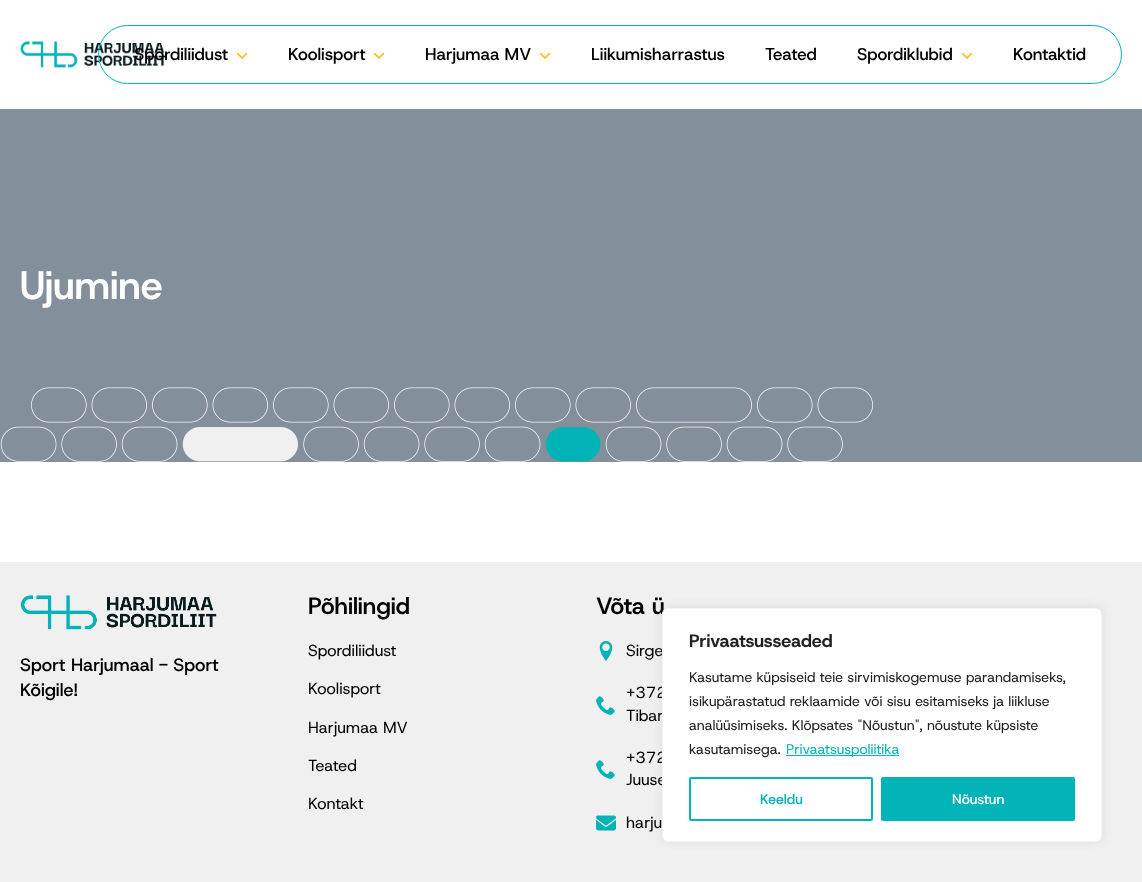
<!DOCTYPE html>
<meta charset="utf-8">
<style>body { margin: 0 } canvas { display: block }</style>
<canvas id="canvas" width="1142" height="882"></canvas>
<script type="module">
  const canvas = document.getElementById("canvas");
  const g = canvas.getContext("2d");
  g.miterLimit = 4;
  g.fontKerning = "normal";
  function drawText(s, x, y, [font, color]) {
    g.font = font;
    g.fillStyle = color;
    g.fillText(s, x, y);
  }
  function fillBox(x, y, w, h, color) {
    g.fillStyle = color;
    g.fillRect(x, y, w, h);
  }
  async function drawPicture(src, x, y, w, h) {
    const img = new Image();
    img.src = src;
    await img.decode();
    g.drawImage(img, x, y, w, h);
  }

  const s1 = ["500 17px Host Grotesk", "#000000"];
  const s2 = ["600 39.5px Host Grotesk", "#FFFFFF"];
  const s3 = ["500 18px Host Grotesk", "#000000"];
  const s4 = ["600 23.5px Host Grotesk", "#000000"];
  const s5 = ["16px Host Grotesk", "#000000"];
  const s6 = ["bold 18px Host Grotesk", "#212121"];
  const s7 = ["14px Host Grotesk", "#212121"];
  const s8 = ["14px Host Grotesk", "#02B3B7"];
  const s9 = ["500 14px Host Grotesk", "#02B3B7"];
  const s10 = ["500 14px Host Grotesk", "#FFFFFF"];

  fillBox(0, 0, 1142, 882, "#FFFFFF");
  await drawPicture("pic1.png", 20, 41, 147, 27);
  g.beginPath();
  g.roundRect(98.5, 25.5, 1023, 58, 29);
  g.strokeStyle = "#00B3B7";
  g.stroke();
  drawText("Spordiliidust", 134, 60, s1);
  await drawPicture("pic2.png", 236, 52, 12, 7);
  drawText("Koolisport", 288, 60, s1);
  await drawPicture("pic2.png", 373, 52, 12, 7);
  drawText("Harjumaa MV", 425, 60, s1);
  await drawPicture("pic2.png", 539, 52, 12, 7);
  drawText("Liikumisharrastus", 591, 60, s1);
  drawText("Teated", 765, 60, s1);
  drawText("Spordiklubid", 857, 60, s1);
  await drawPicture("pic2.png", 961, 52, 12, 7);
  drawText("Kontaktid", 1013, 60, s1);
  fillBox(0, 109, 1142, 353, "#848F9C");
  await drawPicture("pic3.png", 0, 387, 873, 75);
  drawText("Ujumine", 20, 299, s2);
  fillBox(0, 562, 1142, 320, "#F0F0F0");
  await drawPicture("pic4.png", 20, 595, 197, 35);
  drawText("Sport Harjumaal - Sport", 20, 671, s3);
  drawText("Kõigile!", 20, 696, s3);
  drawText("Põhilingid", 308, 614, s4);
  drawText("Spordiliidust", 308, 656, s5);
  drawText("Koolisport", 308, 694, s5);
  drawText("Harjumaa MV", 308, 733, s5);
  drawText("Teated", 308, 771, s5);
  drawText("Kontakt", 308, 809, s5);
  drawText("Võta ü", 596, 614, s4);
  await drawPicture("pic5.png", 599, 641, 14, 20);
  drawText("Sirge", 626, 656, s5);
  await drawPicture("pic6.png", 596, 696, 19, 19);
  drawText("+372", 626, 698, s5);
  drawText("Tibar", 626, 721, s5);
  await drawPicture("pic6.png", 596, 760, 19, 19);
  drawText("+372", 626, 763, s5);
  drawText("Juuse", 626, 785, s5);
  await drawPicture("pic7.png", 596, 815, 20, 16);
  drawText("harju", 626, 828, s5);
  g.fillStyle = "rgba(172, 171, 171, 0.3)";
  g.filter = "blur(5px)";
  g.beginPath();
  g.roundRect(662, 607, 440, 234, 6);
  g.fill();
  g.filter = "none";
  g.fillStyle = "#FFFFFF";
  g.beginPath();
  g.roundRect(662.5, 608.5, 439, 233, 5.5);
  g.fill();
  g.strokeStyle = "#F4F4F4";
  g.stroke();
  drawText("Privaatsusseaded", 689, 647, s6);
  drawText("Kasutame küpsiseid teie sirvimiskogemuse parandamiseks,", 689, 682, s7);
  drawText("isikupärastatud reklaamide või sisu esitamiseks ja liikluse", 689, 706, s7);
  drawText("analüüsimiseks. Klõpsates \"Nõustun\", nõustute küpsiste", 689, 730, s7);
  drawText("kasutamisega.", 689, 754, s7);
  fillBox(786, 755, 113, 1, "#02B3B7");
  drawText("Privaatsuspoliitika", 786, 754, s8);
  g.beginPath();
  g.roundRect(690, 778, 182, 42, 1);
  g.strokeStyle = "#02B3B7";
  g.lineWidth = 2;
  g.stroke();
  drawText("Keeldu", 760, 804, s9);
  g.beginPath();
  g.roundRect(882, 778, 192, 42, 1);
  g.fill();
  g.stroke();
  drawText("Nõustun", 952, 804, s10);
</script>
